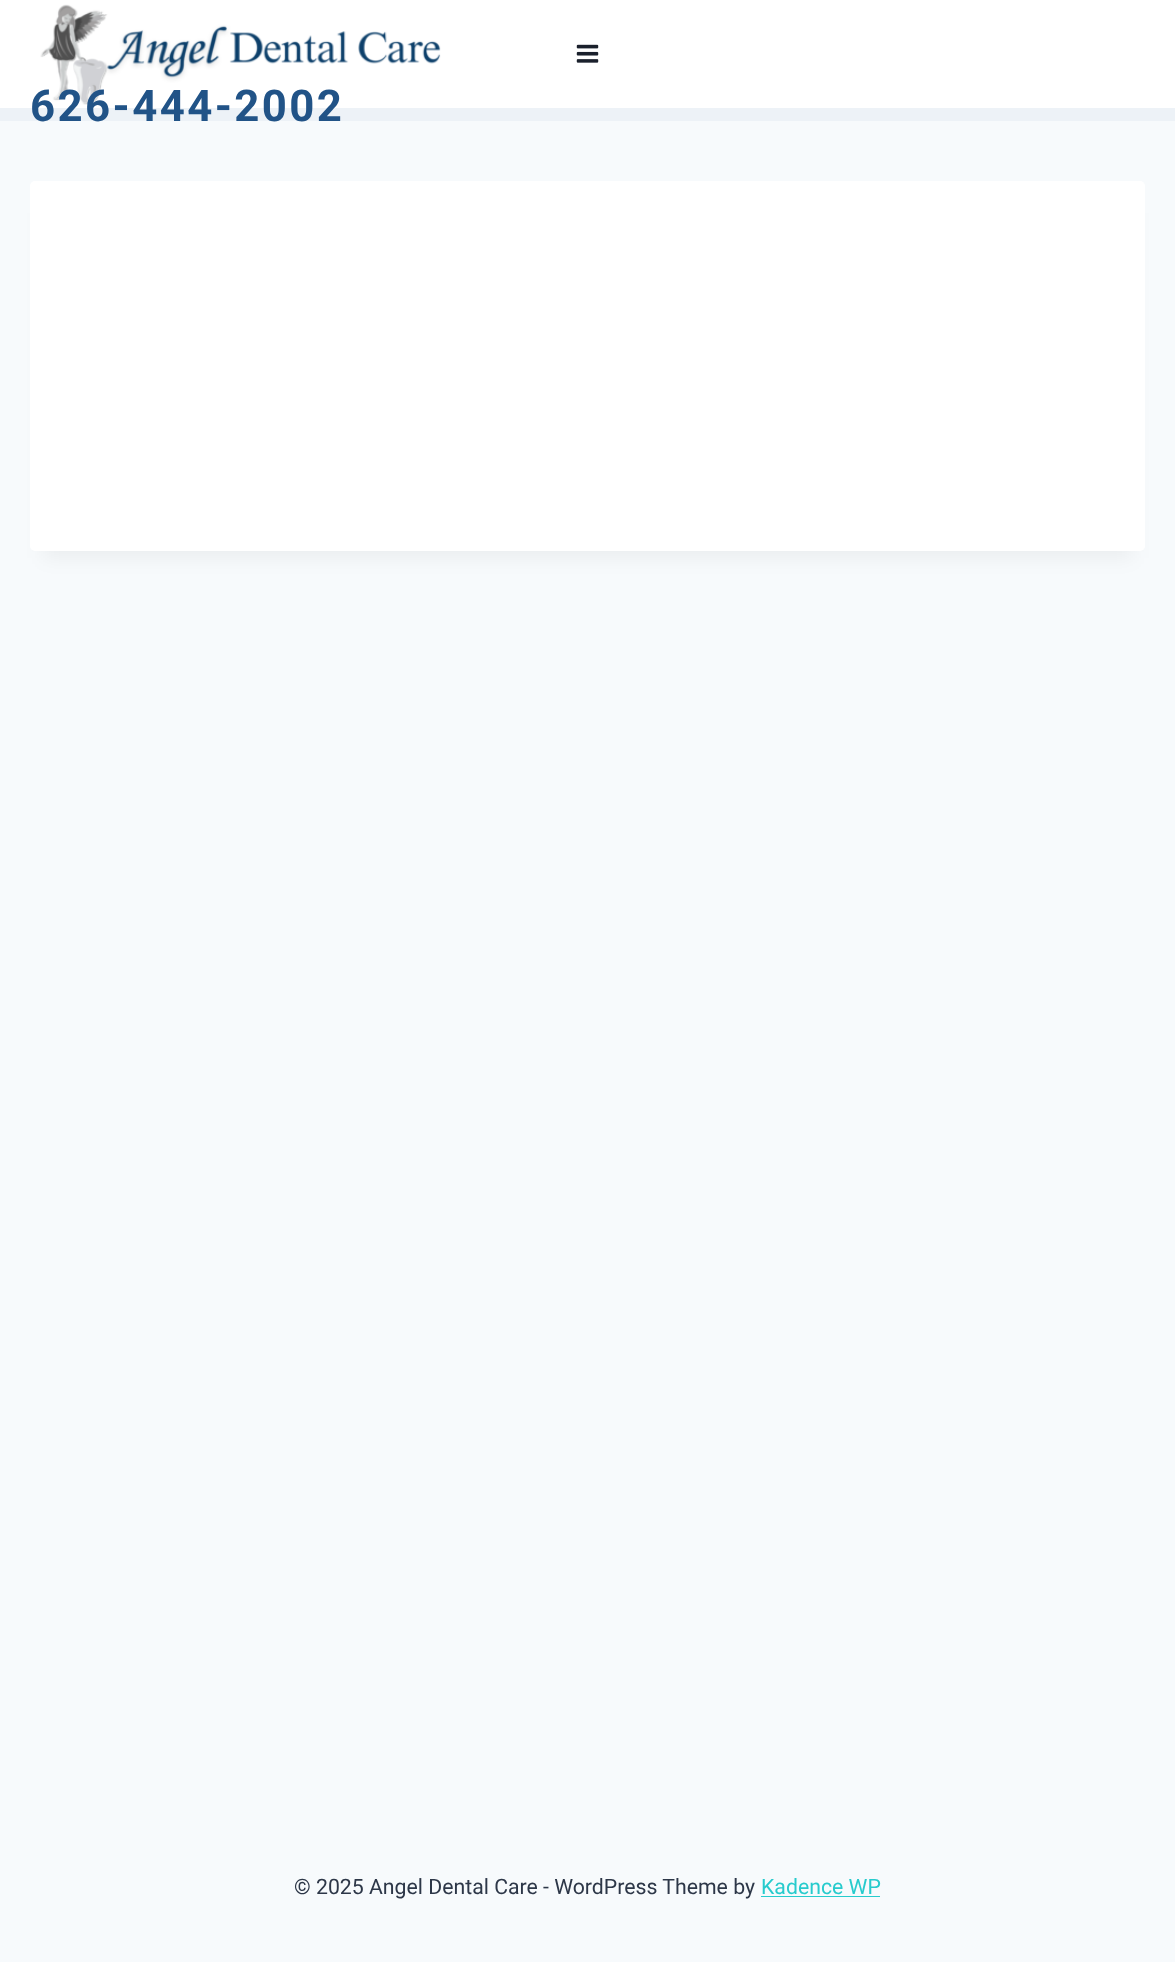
<!DOCTYPE html>
<meta charset="utf-8">
<style>body { margin: 0 } canvas { display: block }</style>
<canvas id="canvas" width="1175" height="1962"></canvas>
<script type="module">
  const canvas = document.getElementById("canvas");
  const g = canvas.getContext("2d");
  g.miterLimit = 4;
  g.fontKerning = "normal";
  function drawText(s, x, y, [font, color]) {
    g.font = font;
    g.fillStyle = color;
    g.fillText(s, x, y);
  }
  function fillBox(x, y, w, h, color) {
    g.fillStyle = color;
    g.fillRect(x, y, w, h);
  }
  function fillRounded(x, y, w, h, r, color) {
    g.fillStyle = color;
    g.beginPath();
    g.roundRect(x, y, w, h, r);
    g.fill();
  }
  async function drawPicture(src, x, y, w, h) {
    const img = new Image();
    img.src = src;
    await img.decode();
    g.drawImage(img, x, y, w, h);
  }

  const s1 = ["bold 43.75px Roboto", "#215387"];
  const s2 = ["21.25px Roboto", "#2D3748"];
  const s3 = ["21.25px Roboto", "#27CBCD"];

  fillBox(0, 0, 1175, 1962, "#F7FAFC");
  fillBox(0, 0, 1175, 108, "#FFFFFF");
  await drawPicture("pic1.png", 40, 4, 401, 101);
  await drawPicture("pic2.png", 576, 44, 23, 19);
  fillBox(0, 108, 1175, 13, "#EDF2F7");
  g.letterSpacing = "2.4px";
  drawText("626-444-2002", 30, 121, s1);
  g.fillStyle = "rgba(0, 0, 0, 0.05)";
  g.filter = "blur(9.5px)";
  g.beginPath();
  g.rect(43, 213, 1090, 345);
  g.fill();
  g.filter = "none";
  fillRounded(30, 181, 1115, 370, 5, "#FFFFFF");
  g.letterSpacing = "0px";
  drawText("© 2025 Angel Dental Care - WordPress Theme by", 294, 1894, s2);
  drawText("Kadence WP", 761, 1894, s3);
  fillBox(761, 1896, 119, 1, "#27CBCD");
</script>
